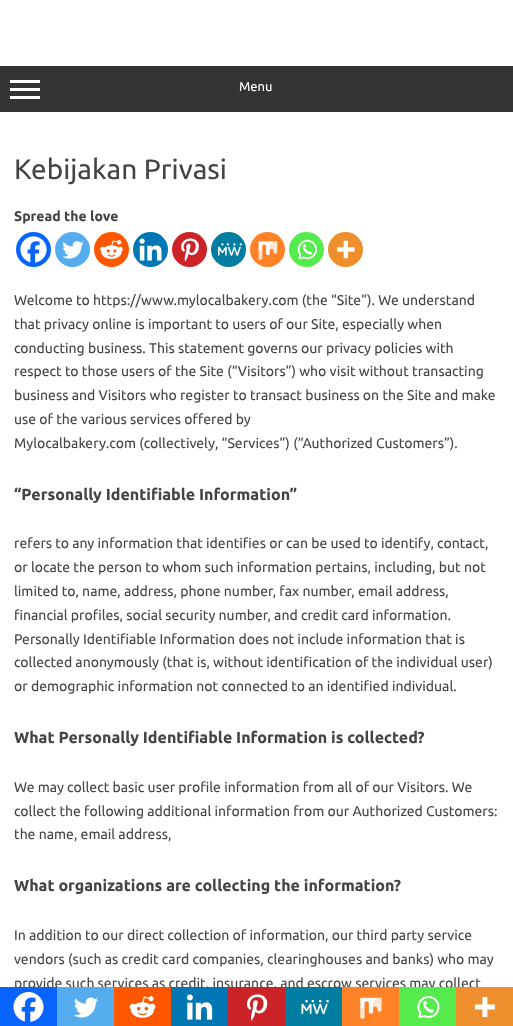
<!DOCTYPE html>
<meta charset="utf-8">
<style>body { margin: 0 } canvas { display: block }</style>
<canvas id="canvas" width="513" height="1026"></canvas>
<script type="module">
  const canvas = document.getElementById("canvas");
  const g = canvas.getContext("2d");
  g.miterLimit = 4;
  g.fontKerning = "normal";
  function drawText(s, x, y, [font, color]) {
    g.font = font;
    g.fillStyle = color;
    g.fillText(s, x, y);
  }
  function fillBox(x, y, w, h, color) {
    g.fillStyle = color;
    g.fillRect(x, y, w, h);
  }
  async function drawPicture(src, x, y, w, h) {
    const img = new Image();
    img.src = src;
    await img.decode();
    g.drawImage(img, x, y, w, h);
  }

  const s1 = ["13px Ubuntu", "#FFFFFF"];
  const s2 = ["28px Ubuntu", "#444444"];
  const s3 = ["bold 14px Ubuntu", "#444444"];
  const s4 = ["14px Ubuntu", "#444444"];
  const s5 = ["bold 16px Ubuntu", "#444444"];

  fillBox(0, 0, 513, 1026, "#FFFFFF");
  fillBox(0, 66, 513, 46, "#333333");
  fillBox(10, 80, 30, 3, "#FFFFFF");
  fillBox(10, 88, 30, 3, "#FFFFFF");
  fillBox(10, 96, 30, 3, "#FFFFFF");
  drawText("Menu", 239, 91, s1);
  drawText("Kebijakan Privasi", 14, 179, s2);
  drawText("Spread the love", 14, 221, s3);
  g.fillStyle = "#0765FE";
  g.beginPath();
  g.arc(33.5, 249.5, 17.5, 0, Math.PI * 2);
  g.fill();
  await drawPicture("pic1.png", 20, 236, 27, 27);
  g.fillStyle = "#55ACEE";
  g.beginPath();
  g.arc(72.5, 249.5, 17.5, 0, Math.PI * 2);
  g.fill();
  await drawPicture("pic2.png", 62, 241, 22, 18);
  g.fillStyle = "#FF5700";
  g.beginPath();
  g.arc(111.5, 249.5, 17.5, 0, Math.PI * 2);
  g.fill();
  await drawPicture("pic3.png", 100, 240, 23, 19);
  g.fillStyle = "#0077B5";
  g.beginPath();
  g.arc(150.5, 249.5, 17.5, 0, Math.PI * 2);
  g.fill();
  await drawPicture("pic4.png", 139, 238, 23, 23);
  g.fillStyle = "#CC2329";
  g.beginPath();
  g.arc(189.5, 249.5, 17.5, 0, Math.PI * 2);
  g.fill();
  await drawPicture("pic5.png", 181, 238, 18, 24);
  g.fillStyle = "#007DA1";
  g.beginPath();
  g.arc(228.5, 249.5, 17.5, 0, Math.PI * 2);
  g.fill();
  await drawPicture("pic6.png", 218, 243, 24, 13);
  g.fillStyle = "#FF8226";
  g.beginPath();
  g.arc(267.5, 249.5, 17.5, 0, Math.PI * 2);
  g.fill();
  await drawPicture("pic7.png", 258, 241, 20, 19);
  g.fillStyle = "#55EB4C";
  g.beginPath();
  g.arc(306.5, 249.5, 17.5, 0, Math.PI * 2);
  g.fill();
  await drawPicture("pic8.png", 297, 239, 20, 21);
  g.fillStyle = "#EE8E2D";
  g.beginPath();
  g.arc(345.5, 249.5, 17.5, 0, Math.PI * 2);
  g.fill();
  await drawPicture("pic9.png", 337, 240, 18, 19);
  drawText("Welcome to https://www.mylocalbakery.com (the “Site”). We understand", 14, 305, s4);
  drawText("that privacy online is important to users of our Site, especially when", 14, 329, s4);
  drawText("conducting business. This statement governs our privacy policies with", 14, 353, s4);
  drawText("respect to those users of the Site (“Visitors”) who visit without transacting", 14, 376, s4);
  drawText("business and Visitors who register to transact business on the Site and make", 14, 400, s4);
  drawText("use of the various services offered by", 14, 424, s4);
  drawText("Mylocalbakery.com (collectively, “Services”) (“Authorized Customers”).", 14, 448, s4);
  drawText("“Personally Identifiable Information”", 14, 500, s5);
  drawText("refers to any information that identifies or can be used to identify, contact,", 14, 548, s4);
  drawText("or locate the person to whom such information pertains, including, but not", 14, 572, s4);
  drawText("limited to, name, address, phone number, fax number, email address,", 14, 596, s4);
  drawText("financial profiles, social security number, and credit card information.", 14, 620, s4);
  drawText("Personally Identifiable Information does not include information that is", 14, 644, s4);
  drawText("collected anonymously (that is, without identification of the individual user)", 14, 667, s4);
  drawText("or demographic information not connected to an identified individual.", 14, 691, s4);
  drawText("What Personally Identifiable Information is collected?", 14, 743, s5);
  drawText("We may collect basic user profile information from all of our Visitors. We", 14, 792, s4);
  drawText("collect the following additional information from our Authorized Customers:", 14, 816, s4);
  drawText("the name, email address,", 14, 839, s4);
  drawText("What organizations are collecting the information?", 14, 891, s5);
  drawText("In addition to our direct collection of information, our third party service", 14, 940, s4);
  drawText("vendors (such as credit card companies, clearinghouses and banks) who may", 14, 964, s4);
  drawText("provide such services as credit, insurance, and escrow services may collect", 14, 988, s4);
  fillBox(0, 987, 57, 39, "#0765FE");
  await drawPicture("pic10.png", 13, 992, 31, 30);
  fillBox(57, 987, 57, 39, "#55ACEE");
  await drawPicture("pic11.png", 74, 997, 25, 21);
  fillBox(114, 987, 57, 39, "#FF5700");
  await drawPicture("pic12.png", 129, 996, 27, 22);
  fillBox(171, 987, 57, 39, "#0077B5");
  await drawPicture("pic13.png", 186, 994, 27, 26);
  fillBox(228, 987, 57, 39, "#CC2329");
  await drawPicture("pic14.png", 246, 994, 22, 27);
  fillBox(285, 987, 57, 39, "#007DA1");
  await drawPicture("pic15.png", 301, 999, 28, 16);
  fillBox(342, 987, 57, 39, "#FF8226");
  await drawPicture("pic16.png", 360, 997, 22, 22);
  fillBox(399, 987, 57, 39, "#55EB4C");
  await drawPicture("pic17.png", 417, 996, 23, 23);
  fillBox(456, 987, 57, 39, "#EE8E2D");
  await drawPicture("pic18.png", 474, 997, 21, 20);
</script>
